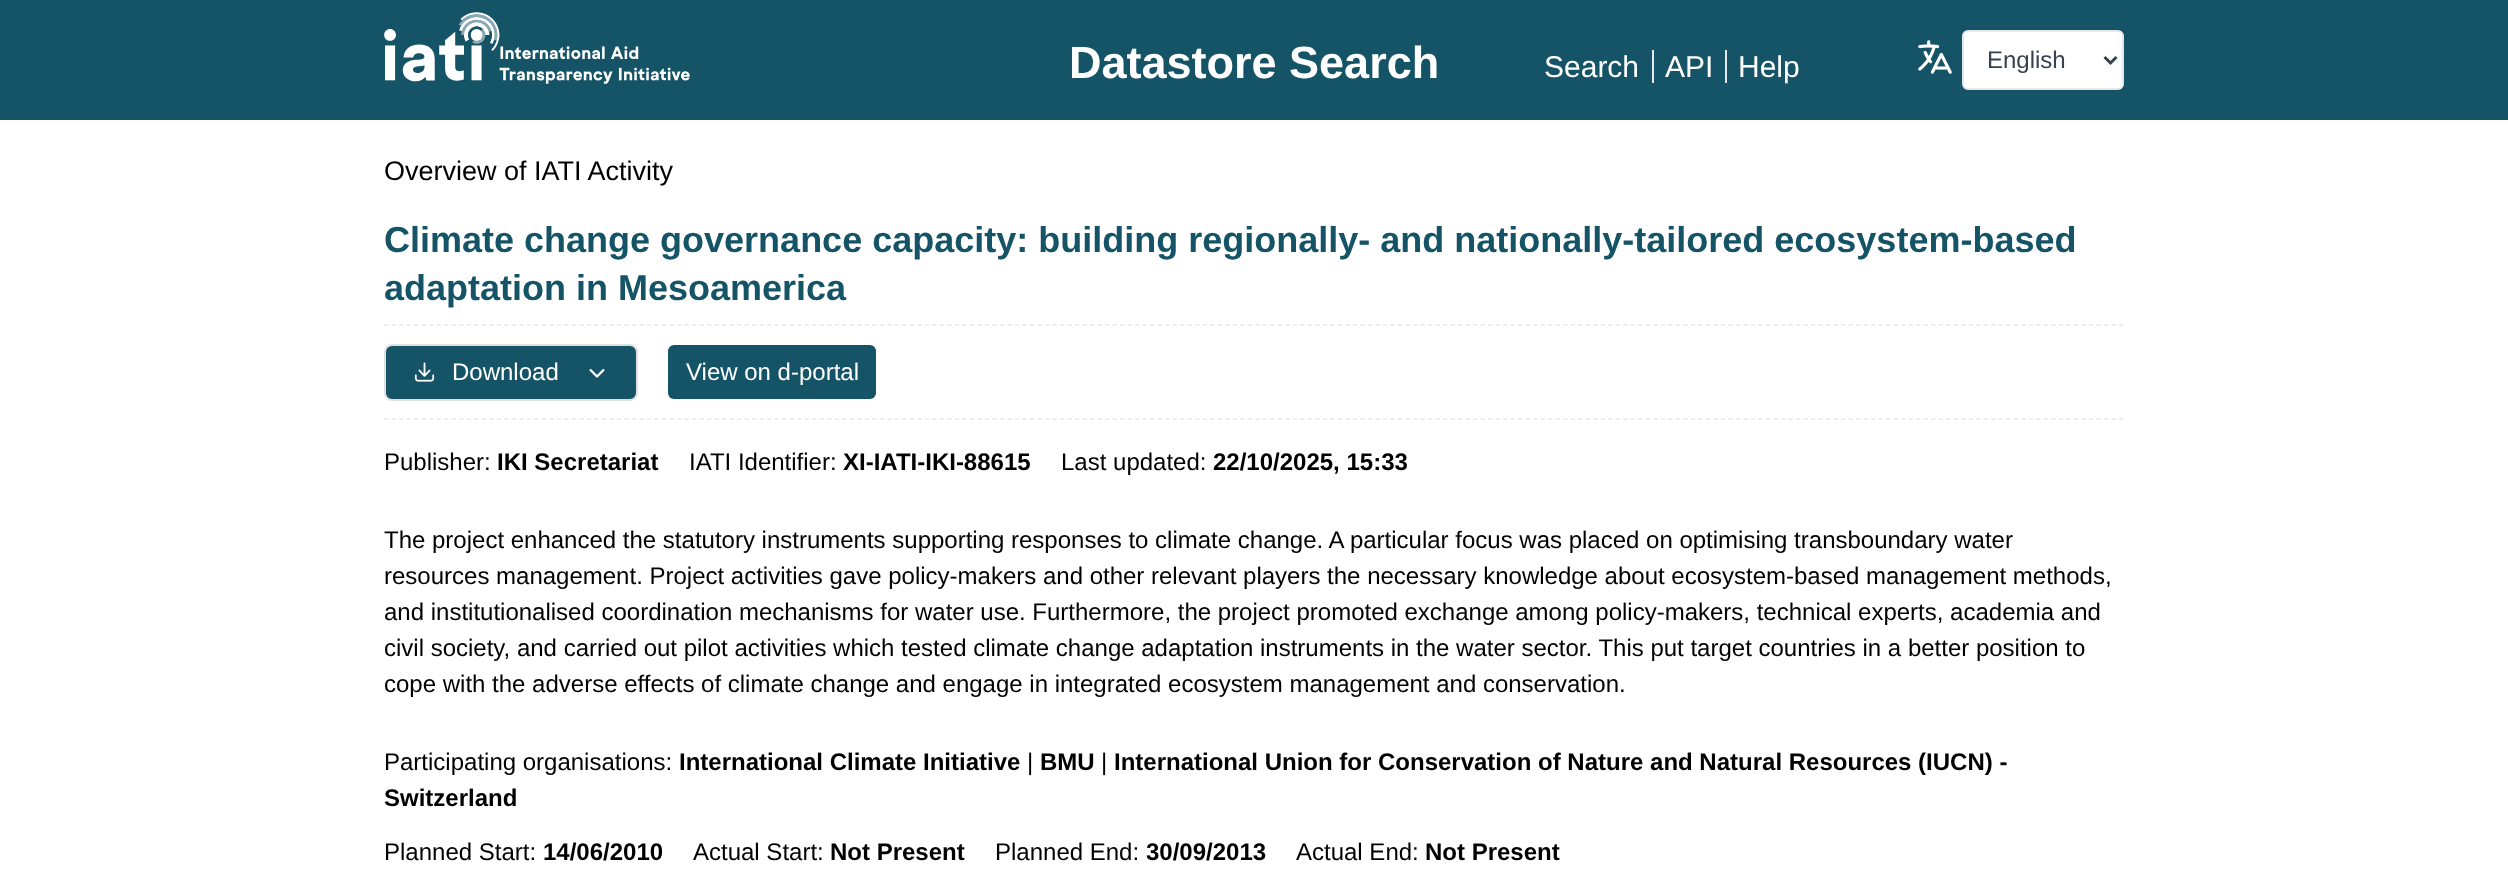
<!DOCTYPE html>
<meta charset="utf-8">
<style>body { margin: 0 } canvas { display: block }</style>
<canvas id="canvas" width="2508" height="872"></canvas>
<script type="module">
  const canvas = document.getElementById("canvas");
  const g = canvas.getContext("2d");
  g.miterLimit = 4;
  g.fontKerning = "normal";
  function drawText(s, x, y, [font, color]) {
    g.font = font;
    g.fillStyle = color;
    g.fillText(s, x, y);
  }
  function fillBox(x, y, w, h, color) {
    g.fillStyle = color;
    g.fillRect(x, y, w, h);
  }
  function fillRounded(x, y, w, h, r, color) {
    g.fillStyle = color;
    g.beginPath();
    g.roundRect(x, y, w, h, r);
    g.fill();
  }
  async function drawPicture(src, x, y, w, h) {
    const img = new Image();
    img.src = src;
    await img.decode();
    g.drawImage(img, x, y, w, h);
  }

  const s1 = ["bold 45px Liberation Sans", "#FFFFFF"];
  const s2 = ["30px Liberation Sans", "#FFFFFF"];
  const s3 = ["24px Liberation Sans", "#374151"];
  const s4 = ["27px Liberation Sans", "#000000"];
  const s5 = ["bold 36px Liberation Sans", "#155366"];
  const s6 = ["24px Liberation Sans", "#FFFFFF"];
  const s7 = ["24px Liberation Sans", "#000000"];
  const s8 = ["bold 24px Liberation Sans", "#000000"];

  fillBox(0, 0, 2508, 872, "#FFFFFF");
  fillBox(0, 0, 2508, 120, "#155366");
  await drawPicture("pic1.png", 384, 12, 306, 72);
  drawText("Datastore Search", 1069, 78, s1);
  drawText("Search", 1544, 77, s2);
  drawText("API", 1665, 77, s2);
  fillBox(1652, 50, 2, 33, "#E5E7EB");
  drawText("Help", 1738, 77, s2);
  fillBox(1725, 50, 2, 33, "#E5E7EB");
  await drawPicture("pic2.png", 1918, 40, 34, 34);
  g.fillStyle = "#FFFFFF";
  g.beginPath();
  g.roundRect(1963, 31, 160, 58, 5);
  g.fill();
  g.strokeStyle = "#E5E7EB";
  g.lineWidth = 2;
  g.stroke();
  g.beginPath();
  g.moveTo(2104.5, 57);
  g.lineTo(2110.5, 63);
  g.lineTo(2116.5, 57);
  g.strokeStyle = "#374151";
  g.lineWidth = 3;
  g.stroke();
  drawText("English", 1987, 68, s3);
  drawText("Overview of IATI Activity", 384, 180, s4);
  g.beginPath();
  g.moveTo(384, 325);
  g.lineTo(2124, 325);
  g.strokeStyle = "#E5E7EB";
  g.lineWidth = 1.5;
  g.setLineDash([4.5, 3.01]);
  g.stroke();
  drawText("Climate change governance capacity: building regionally- and nationally-tailored ecosystem-based", 384, 252, s5);
  drawText("adaptation in Mesoamerica", 384, 300, s5);
  g.beginPath();
  g.moveTo(384, 419);
  g.lineTo(2124, 419);
  g.stroke();
  g.beginPath();
  g.roundRect(385, 345, 252, 55, 7);
  g.fill();
  g.strokeStyle = "#E0E1E2";
  g.lineWidth = 2;
  g.setLineDash([]);
  g.stroke();
  await drawPicture("pic3.png", 414, 362, 21, 20);
  drawText("Download", 452, 380, s6);
  await drawPicture("pic4.png", 589, 369, 16, 9);
  fillRounded(668, 345, 208, 54, 6, "#155366");
  drawText("View on d-portal", 686, 380, s6);
  drawText("Publisher:", 384, 470, s7);
  drawText("IKI Secretariat", 497, 470, s8);
  drawText("IATI Identifier:", 689, 470, s7);
  drawText("XI-IATI-IKI-88615", 843, 470, s8);
  drawText("Last updated:", 1061, 470, s7);
  drawText("22/10/2025, 15:33", 1213, 470, s8);
  drawText("The project enhanced the statutory instruments supporting responses to climate change. A particular focus was placed on optimising transboundary water", 384, 548, s7);
  drawText("resources management. Project activities gave policy-makers and other relevant players the necessary knowledge about ecosystem-based management methods,", 384, 584, s7);
  drawText("and institutionalised coordination mechanisms for water use. Furthermore, the project promoted exchange among policy-makers, technical experts, academia and", 384, 620, s7);
  drawText("civil society, and carried out pilot activities which tested climate change adaptation instruments in the water sector. This put target countries in a better position to", 384, 656, s7);
  drawText("cope with the adverse effects of climate change and engage in integrated ecosystem management and conservation.", 384, 692, s7);
  drawText("Participating organisations:", 384, 770, s7);
  drawText("International Climate Initiative", 679, 770, s8);
  drawText("|", 1027, 770, s7);
  drawText("BMU", 1040, 770, s8);
  drawText("|", 1101, 770, s7);
  drawText("International Union for Conservation of Nature and Natural Resources (IUCN) -", 1114, 770, s8);
  drawText("Switzerland", 384, 806, s8);
  drawText("Planned Start:", 384, 860, s7);
  drawText("14/06/2010", 543, 860, s8);
  drawText("Actual Start:", 693, 860, s7);
  drawText("Not Present", 830, 860, s8);
  drawText("Planned End:", 995, 860, s7);
  drawText("30/09/2013", 1146, 860, s8);
  drawText("Actual End:", 1296, 860, s7);
  drawText("Not Present", 1425, 860, s8);
</script>
